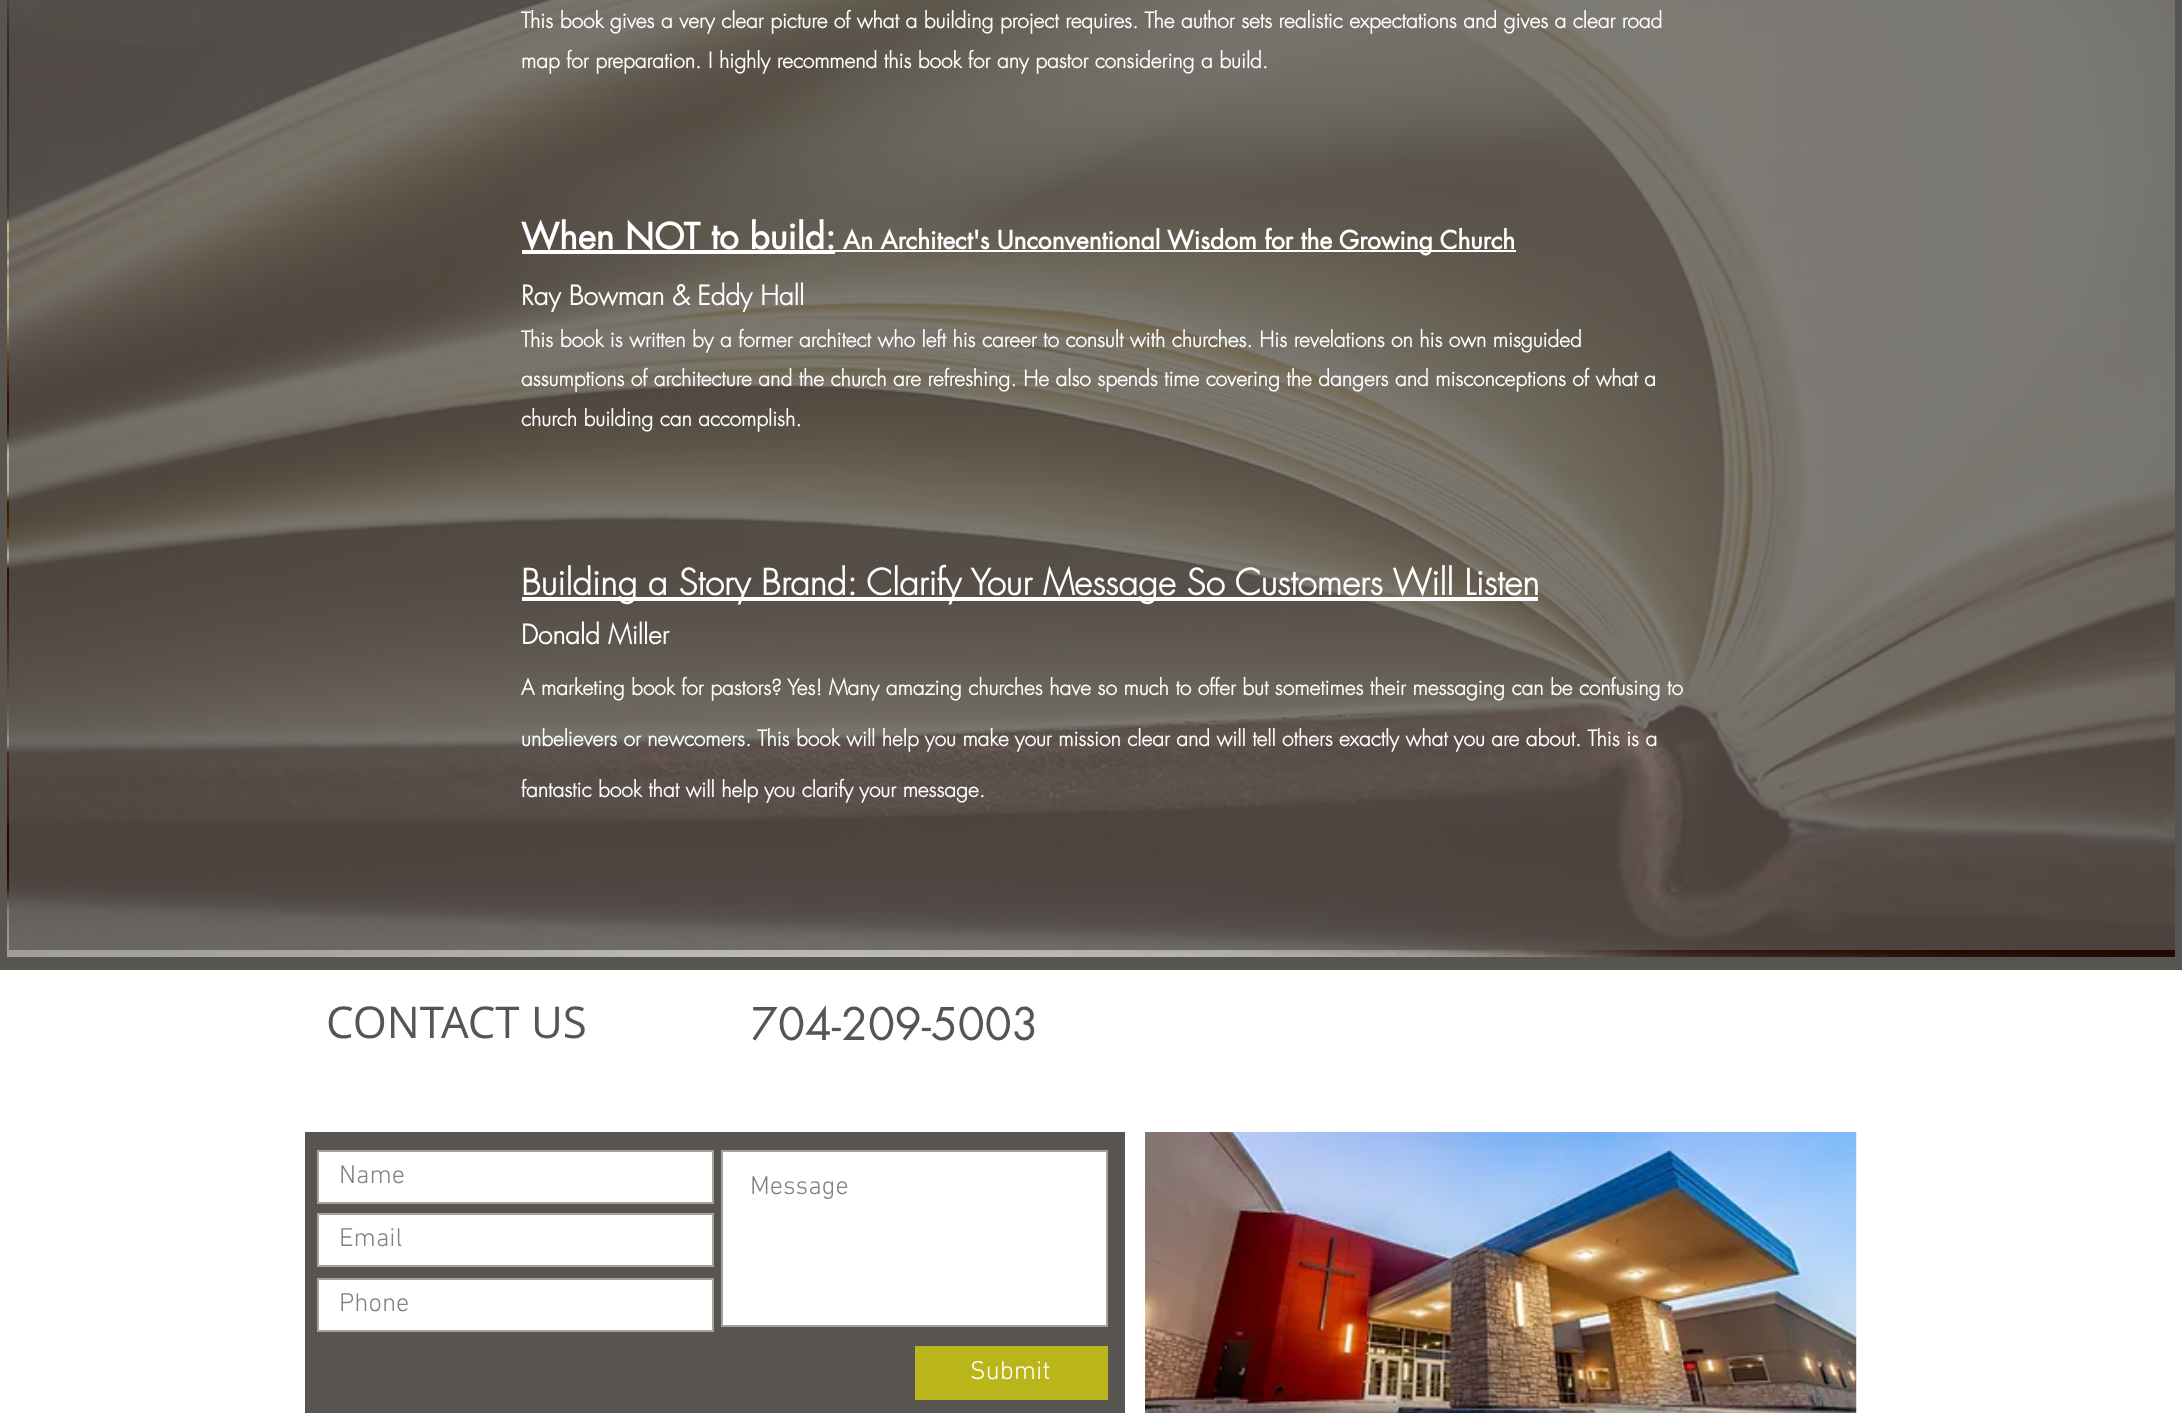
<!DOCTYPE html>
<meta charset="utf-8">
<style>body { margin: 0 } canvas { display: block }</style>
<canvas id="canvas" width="2182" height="1413"></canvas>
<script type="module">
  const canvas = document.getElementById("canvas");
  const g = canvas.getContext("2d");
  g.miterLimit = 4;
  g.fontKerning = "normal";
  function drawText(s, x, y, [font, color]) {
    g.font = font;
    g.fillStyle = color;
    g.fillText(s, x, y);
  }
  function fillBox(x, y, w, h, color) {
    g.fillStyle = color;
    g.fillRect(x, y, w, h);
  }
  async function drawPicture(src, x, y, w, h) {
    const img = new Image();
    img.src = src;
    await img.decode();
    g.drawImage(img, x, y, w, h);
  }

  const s1 = ["bold 21px futura", "#FFFFFF"];
  const s2 = ["bold 35px 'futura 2'", "#FFFFFF"];
  const s3 = ["bold 24.5px 'futura 2'", "#FFFFFF"];
  const s4 = ["bold 26.25px futura", "#FFFFFF"];
  const s5 = ["bold 35px futura", "#FFFFFF"];
  const s6 = ["43.75px Open Sans", "#585551"];
  const s7 = ["43.75px futura", "#585551"];
  const s8 = ["300 26.25px 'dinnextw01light'", "#848079"];
  const s9 = ["300 26.25px 'dinnextw01light'", "#FFFFFF"];

  fillBox(0, 0, 2182, 1413, "#585551");
  await drawPicture("pic1.png", 7, 0, 2168, 957);
  drawText("This book gives a very clear picture of what a building project requires. The author sets realistic expectations and gives a clear road", 521, 28, s1);
  drawText("map for preparation. I highly recommend this book for any pastor considering a build.", 521, 68, s1);
  fillBox(522, 250, 313, 4, "#FFFFFF");
  drawText("When NOT to build:", 521, 249, s2);
  fillBox(835, 250, 681, 2, "#FFFFFF");
  drawText("An Architect's Unconventional Wisdom for the Growing Church", 843, 249, s3);
  drawText("Ray Bowman & Eddy Hall", 521, 305, s4);
  drawText("This book is written by a former architect who left his career to consult with churches. His revelations on his own misguided", 521, 347, s1);
  drawText("assumptions of architecture and the church are refreshing. He also spends time covering the dangers and misconceptions of what a", 521, 386, s1);
  drawText("church building can accomplish.", 521, 426, s1);
  fillBox(522, 597, 1016, 4, "#FFFFFF");
  drawText("Building a Story Brand: Clarify Your Message So Customers Will Listen", 521, 595, s5);
  drawText("Donald Miller", 521, 644, s4);
  drawText("A marketing book for pastors? Yes! Many amazing churches have so much to offer but sometimes their messaging can be confusing to", 521, 695, s1);
  drawText("unbelievers or newcomers. This book will help you make your mission clear and will tell others exactly what you are about. This is a", 521, 746, s1);
  drawText("fantastic book that will help you clarify your message.", 521, 797, s1);
  fillBox(0, 970, 2182, 443, "#FFFFFF");
  drawText("CONTACT US", 326, 1038, s6);
  drawText("704-209-5003", 751, 1040, s7);
  fillBox(305, 1132, 820, 281, "#585551");
  g.fillStyle = "#FFFFFF";
  g.beginPath();
  g.rect(318, 1151, 395, 52);
  g.fill();
  g.strokeStyle = "#A3A29F";
  g.lineWidth = 2;
  g.stroke();
  drawText("Name", 339, 1183, s8);
  g.fillStyle = "#FFFFFF";
  g.beginPath();
  g.rect(722, 1151, 385, 175);
  g.fill();
  g.stroke();
  drawText("Message", 750, 1194, s8);
  g.fillStyle = "#FFFFFF";
  g.beginPath();
  g.rect(318, 1214, 395, 52);
  g.fill();
  g.stroke();
  drawText("Email", 339, 1246, s8);
  g.fillStyle = "#FFFFFF";
  g.beginPath();
  g.rect(318, 1279, 395, 52);
  g.fill();
  g.stroke();
  drawText("Phone", 339, 1311, s8);
  fillBox(915, 1346, 193, 54, "#BAB51A");
  drawText("Submit", 970, 1379, s9);
  await drawPicture("pic2.png", 1145, 1132, 712, 281);
</script>
